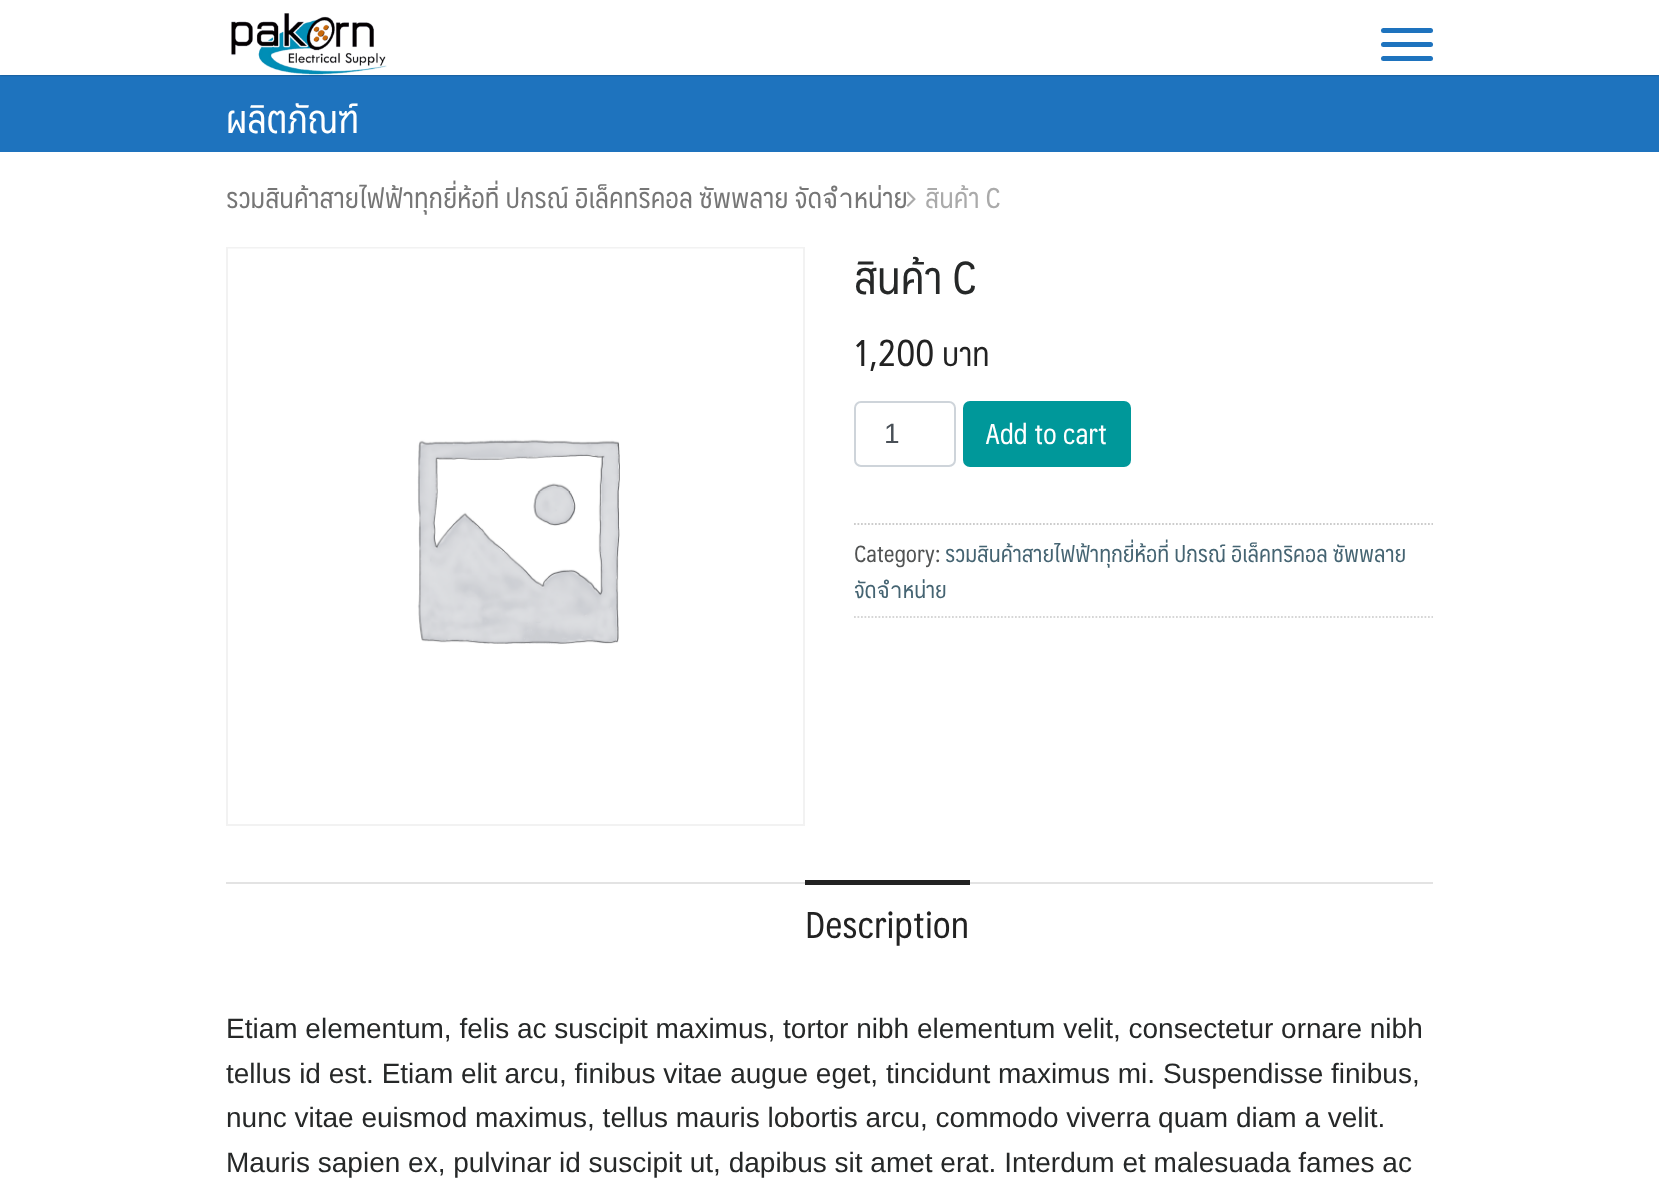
<!DOCTYPE html>
<meta charset="utf-8">
<style>body { margin: 0 } canvas { display: block }</style>
<canvas id="canvas" width="1659" height="1196"></canvas>
<script type="module">
  const canvas = document.getElementById("canvas");
  const g = canvas.getContext("2d");
  g.miterLimit = 4;
  g.fontKerning = "normal";
  function drawText(s, x, y, [font, color]) {
    g.font = font;
    g.fillStyle = color;
    g.fillText(s, x, y);
  }
  function fillBox(x, y, w, h, color) {
    g.fillStyle = color;
    g.fillRect(x, y, w, h);
  }
  function fillRounded(x, y, w, h, r, color) {
    g.fillStyle = color;
    g.beginPath();
    g.roundRect(x, y, w, h, r);
    g.fill();
  }
  async function drawPicture(src, x, y, w, h) {
    const img = new Image();
    img.src = src;
    await img.decode();
    g.drawImage(img, x, y, w, h);
  }

  const s1 = ["38.5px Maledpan", "#FFFFFF"];
  const s2 = ["27.75px Maledpan", "#767676"];
  const s3 = ["27.75px Maledpan", "#AAAAAA"];
  const s4 = ["45px Maledpan", "#262828"];
  const s5 = ["36.5px Maledpan", "#222222"];
  const s6 = ["33px Maledpan", "#222222"];
  const s7 = ["28px Liberation Sans", "#495057"];
  const s8 = ["28px Maledpan", "#FFFFFF"];
  const s9 = ["22.75px Maledpan", "#515353"];
  const s10 = ["22.75px Maledpan", "#456472"];
  const s11 = ["28px Liberation Sans", "#262828"];

  fillBox(0, 0, 1659, 1196, "#FFFFFF");
  fillBox(0, 75, 1659, 77, "#1E73BE");
  g.save();
  g.beginPath();
  g.rect(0, 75, 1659, 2);
  g.clip();
  g.fillStyle = "rgba(0, 0, 0, 0.4)";
  g.filter = "blur(1px)";
  g.beginPath();
  g.rect(0, 0, 1659, 75);
  g.fill();
  g.filter = "none";
  g.restore();
  await drawPicture("pic1.png", 231, 13, 156, 62);
  fillRounded(1381, 28, 52, 5, 2.5, "#1E73BE");
  fillRounded(1381, 42, 52, 5, 2.5, "#1E73BE");
  fillRounded(1381, 56, 52, 5, 2.5, "#1E73BE");
  drawText("ผลิตภัณฑ์", 226, 133, s1);
  drawText("รวมสินค้าสายไฟฟ้าทุกยี่ห้อที่ ปกรณ์ อิเล็คทริคอล ซัพพลาย จัดจำหน่าย", 226, 208, s2);
  await drawPicture("pic2.png", 906, 191, 10, 16);
  drawText("สินค้า C", 925, 208, s3);
  g.strokeStyle = "#F2F2F2";
  g.lineWidth = 2;
  g.strokeRect(227, 248, 577, 577);
  await drawPicture("pic3.png", 228, 248, 575, 397);
  drawText("สินค้า C", 854, 294, s4);
  drawText("1,200", 854, 366, s5);
  drawText("บาท", 942, 366, s6);
  g.beginPath();
  g.roundRect(855, 402, 100, 64, 6);
  g.strokeStyle = "#CED4DA";
  g.stroke();
  drawText("1", 884, 443, s7);
  fillRounded(963, 401, 168, 66, 7, "#00989A");
  drawText("Add to cart", 985, 444, s8);
  g.beginPath();
  g.moveTo(854, 524);
  g.lineTo(1433, 524);
  g.strokeStyle = "#CCCCCC";
  g.lineWidth = 1.8;
  g.setLineDash([1.75, 1.75]);
  g.stroke();
  g.beginPath();
  g.moveTo(854, 617);
  g.lineTo(1433, 617);
  g.strokeStyle = "#D6D6D6";
  g.stroke();
  drawText("Category:", 854, 562, s9);
  drawText("รวมสินค้าสายไฟฟ้าทุกยี่ห้อที่ ปกรณ์ อิเล็คทริคอล ซัพพลาย", 945, 562, s10);
  drawText("จัดจำหน่าย", 854, 598, s10);
  fillBox(226, 882, 1207, 2, "#E3E3E3");
  fillBox(805, 880, 165, 5, "#222222");
  drawText("Description", 805, 938, s5);
  drawText("Etiam elementum, felis ac suscipit maximus, tortor nibh elementum velit, consectetur ornare nibh", 226, 1038, s11);
  drawText("tellus id est. Etiam elit arcu, finibus vitae augue eget, tincidunt maximus mi. Suspendisse finibus,", 226, 1083, s11);
  drawText("nunc vitae euismod maximus, tellus mauris lobortis arcu, commodo viverra quam diam a velit.", 226, 1127, s11);
  drawText("Mauris sapien ex, pulvinar id suscipit ut, dapibus sit amet erat. Interdum et malesuada fames ac", 226, 1172, s11);
</script>
